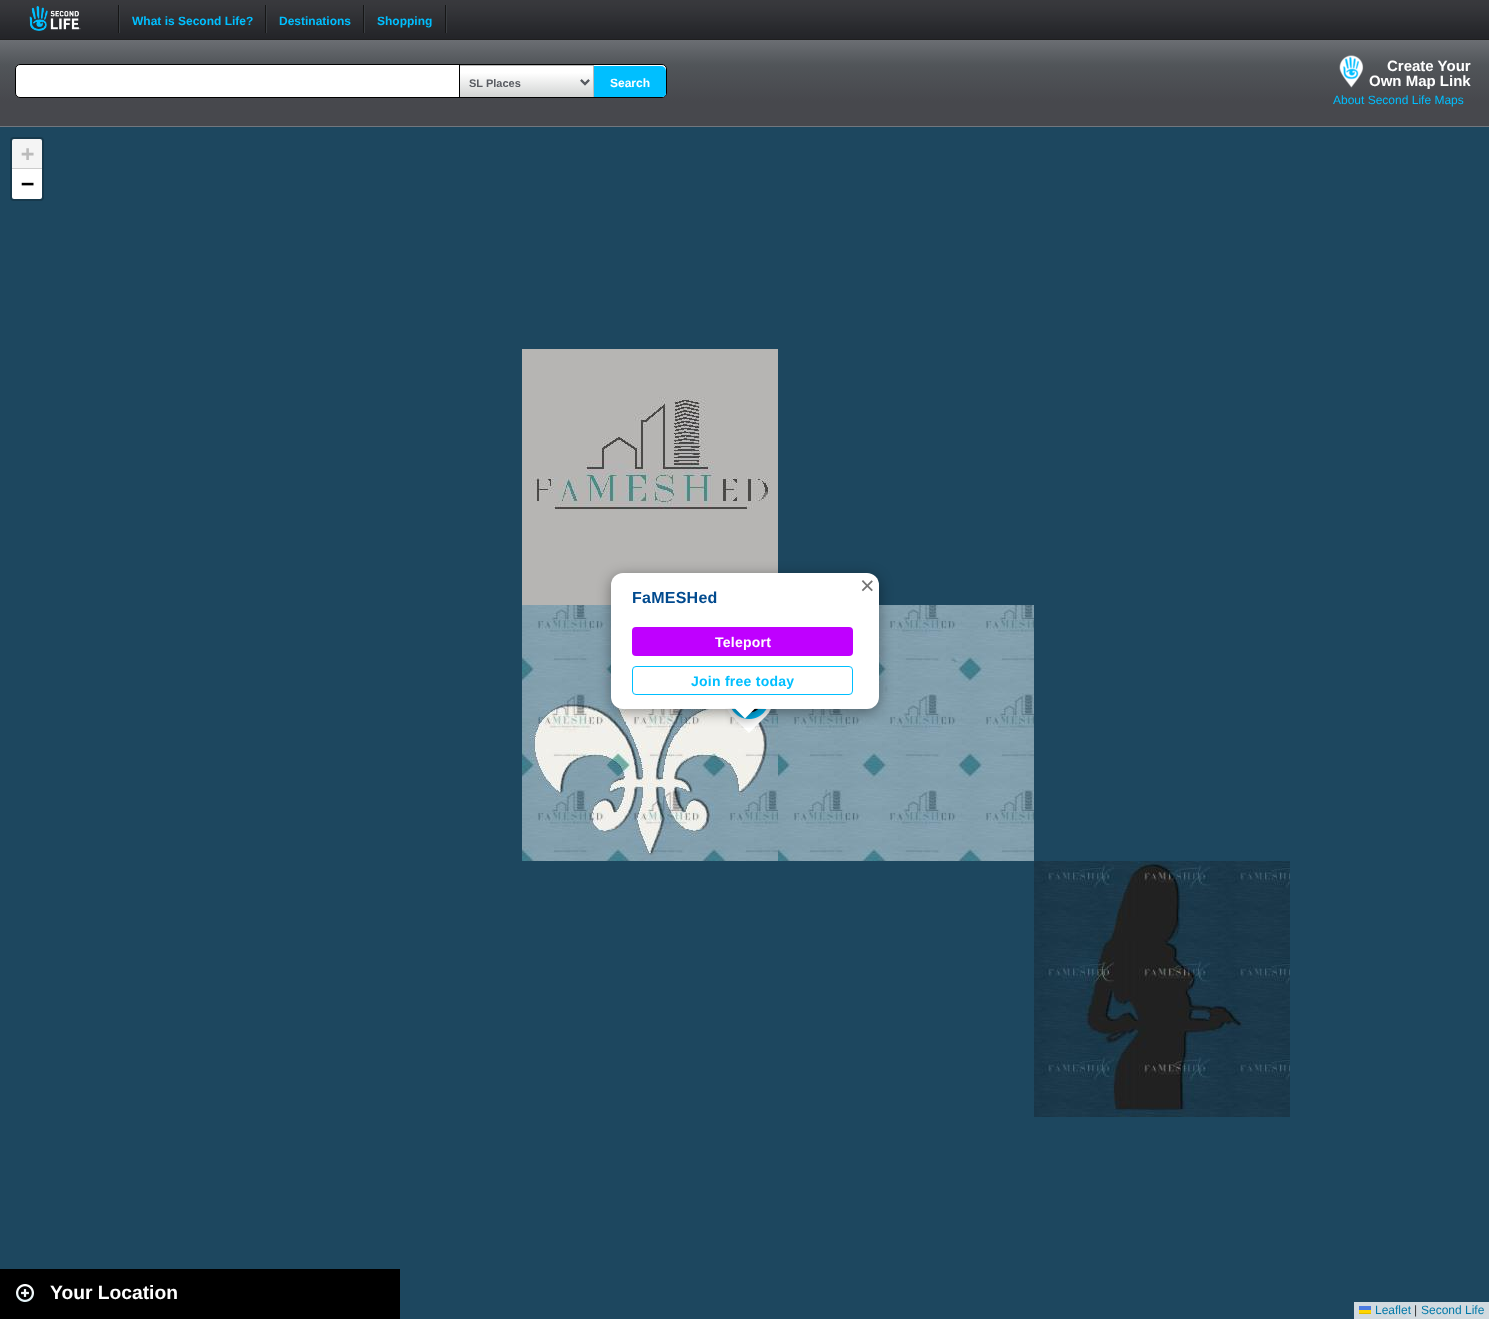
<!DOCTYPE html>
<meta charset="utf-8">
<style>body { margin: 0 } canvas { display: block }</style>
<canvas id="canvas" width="1489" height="1319"></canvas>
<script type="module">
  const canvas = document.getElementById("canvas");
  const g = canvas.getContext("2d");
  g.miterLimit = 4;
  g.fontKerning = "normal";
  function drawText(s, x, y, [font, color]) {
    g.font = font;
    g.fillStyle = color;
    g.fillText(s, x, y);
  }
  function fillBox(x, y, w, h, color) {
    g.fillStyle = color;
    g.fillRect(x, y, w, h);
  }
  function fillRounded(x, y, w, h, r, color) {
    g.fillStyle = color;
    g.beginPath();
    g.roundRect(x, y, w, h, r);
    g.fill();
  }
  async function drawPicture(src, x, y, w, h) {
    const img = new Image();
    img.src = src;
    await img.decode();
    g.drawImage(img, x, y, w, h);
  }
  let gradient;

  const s1 = ["bold 12px Liberation Sans", "#00BFFF"];
  const s2 = ["bold 11px Liberation Sans", "#595C62"];
  const s3 = ["bold 12px Liberation Sans", "#FFFFFF"];
  const s4 = ["bold 15px Liberation Sans", "#FFFFFF"];
  const s5 = ["12px Liberation Sans", "#00BFFF"];
  const s6 = ["bold 22px DejaVu Sans Mono", "#BBBBBB"];
  const s7 = ["bold 22px DejaVu Sans Mono", "#000000"];
  const s8 = ["12px Liberation Sans", "#0078A8"];
  const s9 = ["12px Liberation Sans", "#333333"];
  const s10 = ["25px Liberation Sans", "#757575"];
  const s11 = ["bold 16px Liberation Sans", "#014A8E"];
  const s12 = ["bold 14px Liberation Sans", "#FFFFFF"];
  const s13 = ["bold 14px Liberation Sans", "#00BFFF"];
  const s14 = ["bold 19.25px Liberation Sans", "#FFFFFF"];

  fillBox(0, 0, 1489, 1319, "#1D475F");
  await drawPicture("pic1.png", 0, 0, 1489, 40);
  await drawPicture("pic2.png", 29, 6, 52, 25);
  fillBox(119, 5, 1, 28, "#3A3E42");
  fillBox(118, 5, 1, 28, "#161616");
  drawText("What is Second Life?", 132, 25, s1);
  fillBox(266, 5, 1, 28, "#3A3E42");
  fillBox(265, 5, 1, 28, "#161616");
  drawText("Destinations", 279, 25, s1);
  fillBox(364, 5, 1, 28, "#3A3E42");
  fillBox(363, 5, 1, 28, "#161616");
  drawText("Shopping", 377, 25, s1);
  fillBox(446, 5, 1, 28, "#3A3E42");
  fillBox(445, 5, 1, 28, "#161616");
  gradient = g.createLinearGradient(0, 126, 0, 40);
  gradient.addColorStop(0.29, "#47484D");
  gradient.addColorStop(0.71, "#515559");
  gradient.addColorStop(1, "#6B6E73");
  g.fillStyle = gradient;
  g.fillRect(0, 40, 1489, 86);
  fillBox(0, 126, 1489, 1, "#72777E");
  g.fillStyle = "#FFFFFF";
  g.beginPath();
  g.roundRect(15.5, 64.5, 651, 33, 4.5);
  g.fill();
  g.strokeStyle = "#000000";
  g.stroke();
  await drawPicture("pic3.png", 460, 66, 133, 31);
  fillBox(459, 65, 135, 1, "#BBBBBB");
  fillBox(593, 65, 1, 32, "#BBBBBB");
  fillBox(459, 65, 1, 32, "#000000");
  g.beginPath();
  g.moveTo(581, 80);
  g.lineTo(585, 84);
  g.lineTo(589, 80);
  g.strokeStyle = "#595C62";
  g.lineWidth = 2;
  g.stroke();
  drawText("SL Places", 469, 87, s2);
  g.save();
  g.beginPath();
  g.roundRect(16, 65, 650, 32, 4);
  g.clip();
  g.fillStyle = "#00BFFF";
  g.beginPath();
  g.roundRect(594, 66, 72, 34, [0, 5, 5, 0]);
  g.fill();
  g.restore();
  drawText("Search", 610, 87, s3);
  await drawPicture("pic4.png", 1339, 55, 25, 33);
  drawText("Create Your", 1387, 71, s4);
  drawText("Own Map Link", 1369, 86, s4);
  drawText("About Second Life Maps", 1333, 104, s5);
  g.beginPath();
  g.roundRect(11, 138, 32, 62, 3);
  g.strokeStyle = "#17394C";
  g.stroke();
  g.fillStyle = "#F4F4F4";
  g.beginPath();
  g.roundRect(12, 139, 30, 30, [2, 2, 0, 0]);
  g.fill();
  fillBox(12, 168, 30, 1, "#CCCCCC");
  drawText("+", 21, 161, s6);
  g.fillStyle = "#FFFFFF";
  g.beginPath();
  g.roundRect(12, 169, 30, 30, [0, 0, 2, 2]);
  g.fill();
  drawText("−", 21, 191, s7);
  fillBox(1354, 1302, 135, 17, "#D2DADF");
  drawText("Leaflet", 1375, 1314, s8);
  fillBox(1359, 1306, 12, 4, "#4C7BE1");
  fillBox(1359, 1310, 12, 3, "#FFD500");
  fillBox(1359, 1313, 12, 1, "#E0BC00");
  drawText("|", 1414, 1314, s9);
  drawText("Second Life", 1421, 1314, s8);
  await drawPicture("pic5.png", 522, 349, 256, 256);
  await drawPicture("pic6.png", 522, 605, 256, 256);
  await drawPicture("pic7.png", 778, 605, 256, 256);
  await drawPicture("pic8.png", 1034, 861, 256, 256);
  await drawPicture("pic9.png", 727, 709, 44, 24);
  g.fillStyle = "rgba(0, 0, 0, 0.4)";
  g.filter = "blur(7px)";
  g.beginPath();
  g.roundRect(611, 576, 268, 136, 12);
  g.fill();
  g.filter = "none";
  fillRounded(611, 573, 268, 136, 12, "#FFFFFF");
  drawText("×", 860, 594, s10);
  g.letterSpacing = "0.25px";
  drawText("FaMESHed", 632, 603, s11);
  fillRounded(632, 627, 221, 29, 4, "#BF00FF");
  drawText("Teleport", 715, 647, s12);
  g.beginPath();
  g.roundRect(632.5, 666.5, 220, 28, 3.5);
  g.strokeStyle = "#00BFFF";
  g.lineWidth = 1;
  g.stroke();
  drawText("Join free today", 691, 686, s13);
  g.save();
  g.beginPath();
  g.rect(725, 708, 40, 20);
  g.clip();
  g.fillStyle = "rgba(0, 0, 0, 0.4)";
  g.filter = "blur(7px)";
  g.beginPath();
  g.rect(737, 701, 17, 17);
  g.fill();
  g.filter = "none";
  g.restore();
  g.save();
  g.beginPath();
  g.rect(725, 708, 40, 20);
  g.clip();
  g.fillStyle = "#FFFFFF";
  g.beginPath();
  g.moveTo(745, 694.5);
  g.lineTo(757, 706.5);
  g.lineTo(745, 718.5);
  g.lineTo(733, 706.5);
  g.closePath();
  g.fill();
  g.restore();
  fillBox(0, 1269, 400, 50, "#000000");
  await drawPicture("pic10.png", 16, 1284, 18, 18);
  g.letterSpacing = "0px";
  drawText("Your Location", 50, 1299, s14);
</script>
